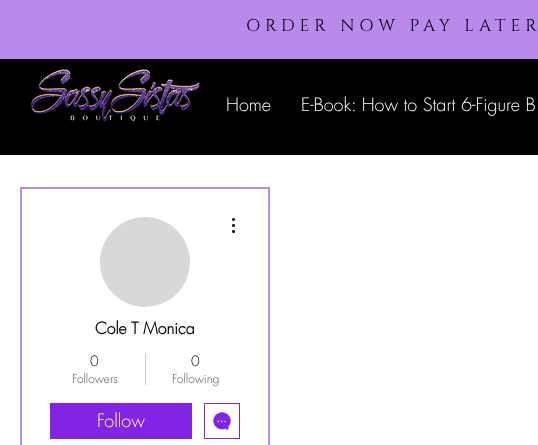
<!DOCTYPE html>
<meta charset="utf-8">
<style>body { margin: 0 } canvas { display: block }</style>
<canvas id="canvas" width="538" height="445"></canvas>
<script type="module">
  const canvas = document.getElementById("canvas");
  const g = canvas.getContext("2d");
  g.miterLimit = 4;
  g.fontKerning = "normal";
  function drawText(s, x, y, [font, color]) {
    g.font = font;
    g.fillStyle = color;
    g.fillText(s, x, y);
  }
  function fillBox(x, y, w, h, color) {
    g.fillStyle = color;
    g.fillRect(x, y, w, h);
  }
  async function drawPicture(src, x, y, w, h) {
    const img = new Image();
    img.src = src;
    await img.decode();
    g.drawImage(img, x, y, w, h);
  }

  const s1 = ["17px Cinzel", "#000000"];
  const s2 = ["300 18px futura", "#FFFFFF"];
  const s3 = ["bold 16px futura", "#000000"];
  const s4 = ["300 14px futura", "#000000"];
  const s5 = ["300 12px futura", "#4D4D4D"];

  fillBox(0, 0, 538, 445, "#FFFFFF");
  fillBox(0, 59, 538, 96, "#000000");
  await drawPicture("pic1.png", 31, 69, 169, 53);
  fillBox(0, 0, 538, 59, "#BA89EC");
  g.letterSpacing = "5.1px";
  drawText("ORDER NOW PAY LATER", 246, 31, s1);
  g.letterSpacing = "0px";
  drawText("Home", 226, 111, s2);
  drawText("E-Book: How to Start 6-Figure B", 301, 111, s2);
  g.strokeStyle = "#BA89EC";
  g.lineWidth = 2;
  g.strokeRect(21, 188, 248, 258);
  g.fillStyle = "#D8D8D8";
  g.beginPath();
  g.arc(145, 262, 45, 0, Math.PI * 2);
  g.fill();
  await drawPicture("pic2.png", 232, 218, 3, 15);
  drawText("Cole T Monica", 95, 334, s3);
  drawText("0", 90, 366, s4);
  drawText("Followers", 72, 383, s5);
  fillBox(145, 353, 1, 32, "#CCCCCC");
  drawText("0", 191, 366, s4);
  drawText("Following", 172, 383, s5);
  fillBox(50, 403, 142, 36, "#8224E3");
  drawText("Follow", 97, 427, s2);
  g.strokeStyle = "#8224E3";
  g.lineWidth = 1;
  g.strokeRect(204.5, 403.5, 35, 35);
  await drawPicture("pic3.png", 213, 412, 18, 18);
</script>
